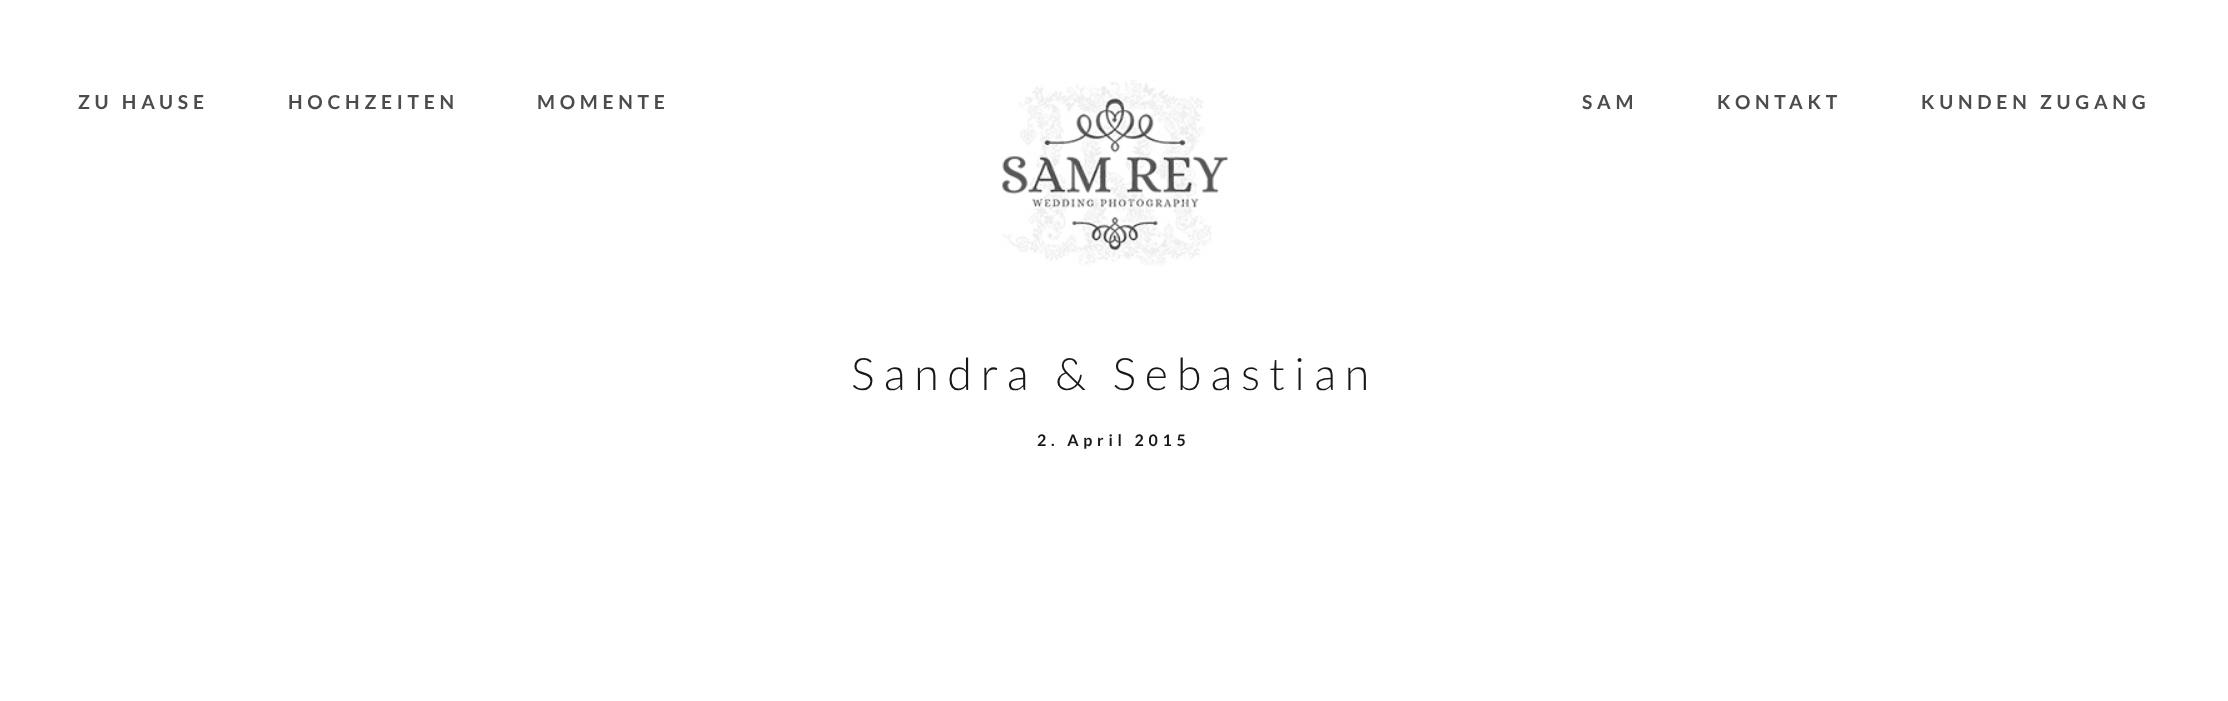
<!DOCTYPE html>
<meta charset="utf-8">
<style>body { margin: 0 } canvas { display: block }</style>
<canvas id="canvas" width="2228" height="701"></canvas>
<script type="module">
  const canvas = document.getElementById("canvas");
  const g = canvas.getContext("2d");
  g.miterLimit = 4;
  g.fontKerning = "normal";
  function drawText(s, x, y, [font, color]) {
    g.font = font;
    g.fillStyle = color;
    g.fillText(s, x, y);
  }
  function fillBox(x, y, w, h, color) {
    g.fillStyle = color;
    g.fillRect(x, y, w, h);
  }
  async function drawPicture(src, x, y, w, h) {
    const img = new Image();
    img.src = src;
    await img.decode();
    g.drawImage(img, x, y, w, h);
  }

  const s1 = ["bold 19.25px Lato", "#4C4C4C"];
  const s2 = ["300 44.8px Lato", "#181818"];
  const s3 = ["bold 16px Lato", "#181818"];

  fillBox(0, 0, 2228, 701, "#FFFFFF");
  g.letterSpacing = "4.75px";
  drawText("ZU HAUSE", 78, 109, s1);
  drawText("HOCHZEITEN", 288, 109, s1);
  drawText("MOMENTE", 537, 109, s1);
  await drawPicture("pic1.png", 1002, 80, 226, 186);
  drawText("SAM", 1582, 109, s1);
  drawText("KONTAKT", 1717, 109, s1);
  drawText("KUNDEN ZUGANG", 1921, 109, s1);
  g.letterSpacing = "9px";
  drawText("Sandra & Sebastian", 851, 390, s2);
  g.letterSpacing = "4.75px";
  drawText("2. April 2015", 1037, 446, s3);
</script>
